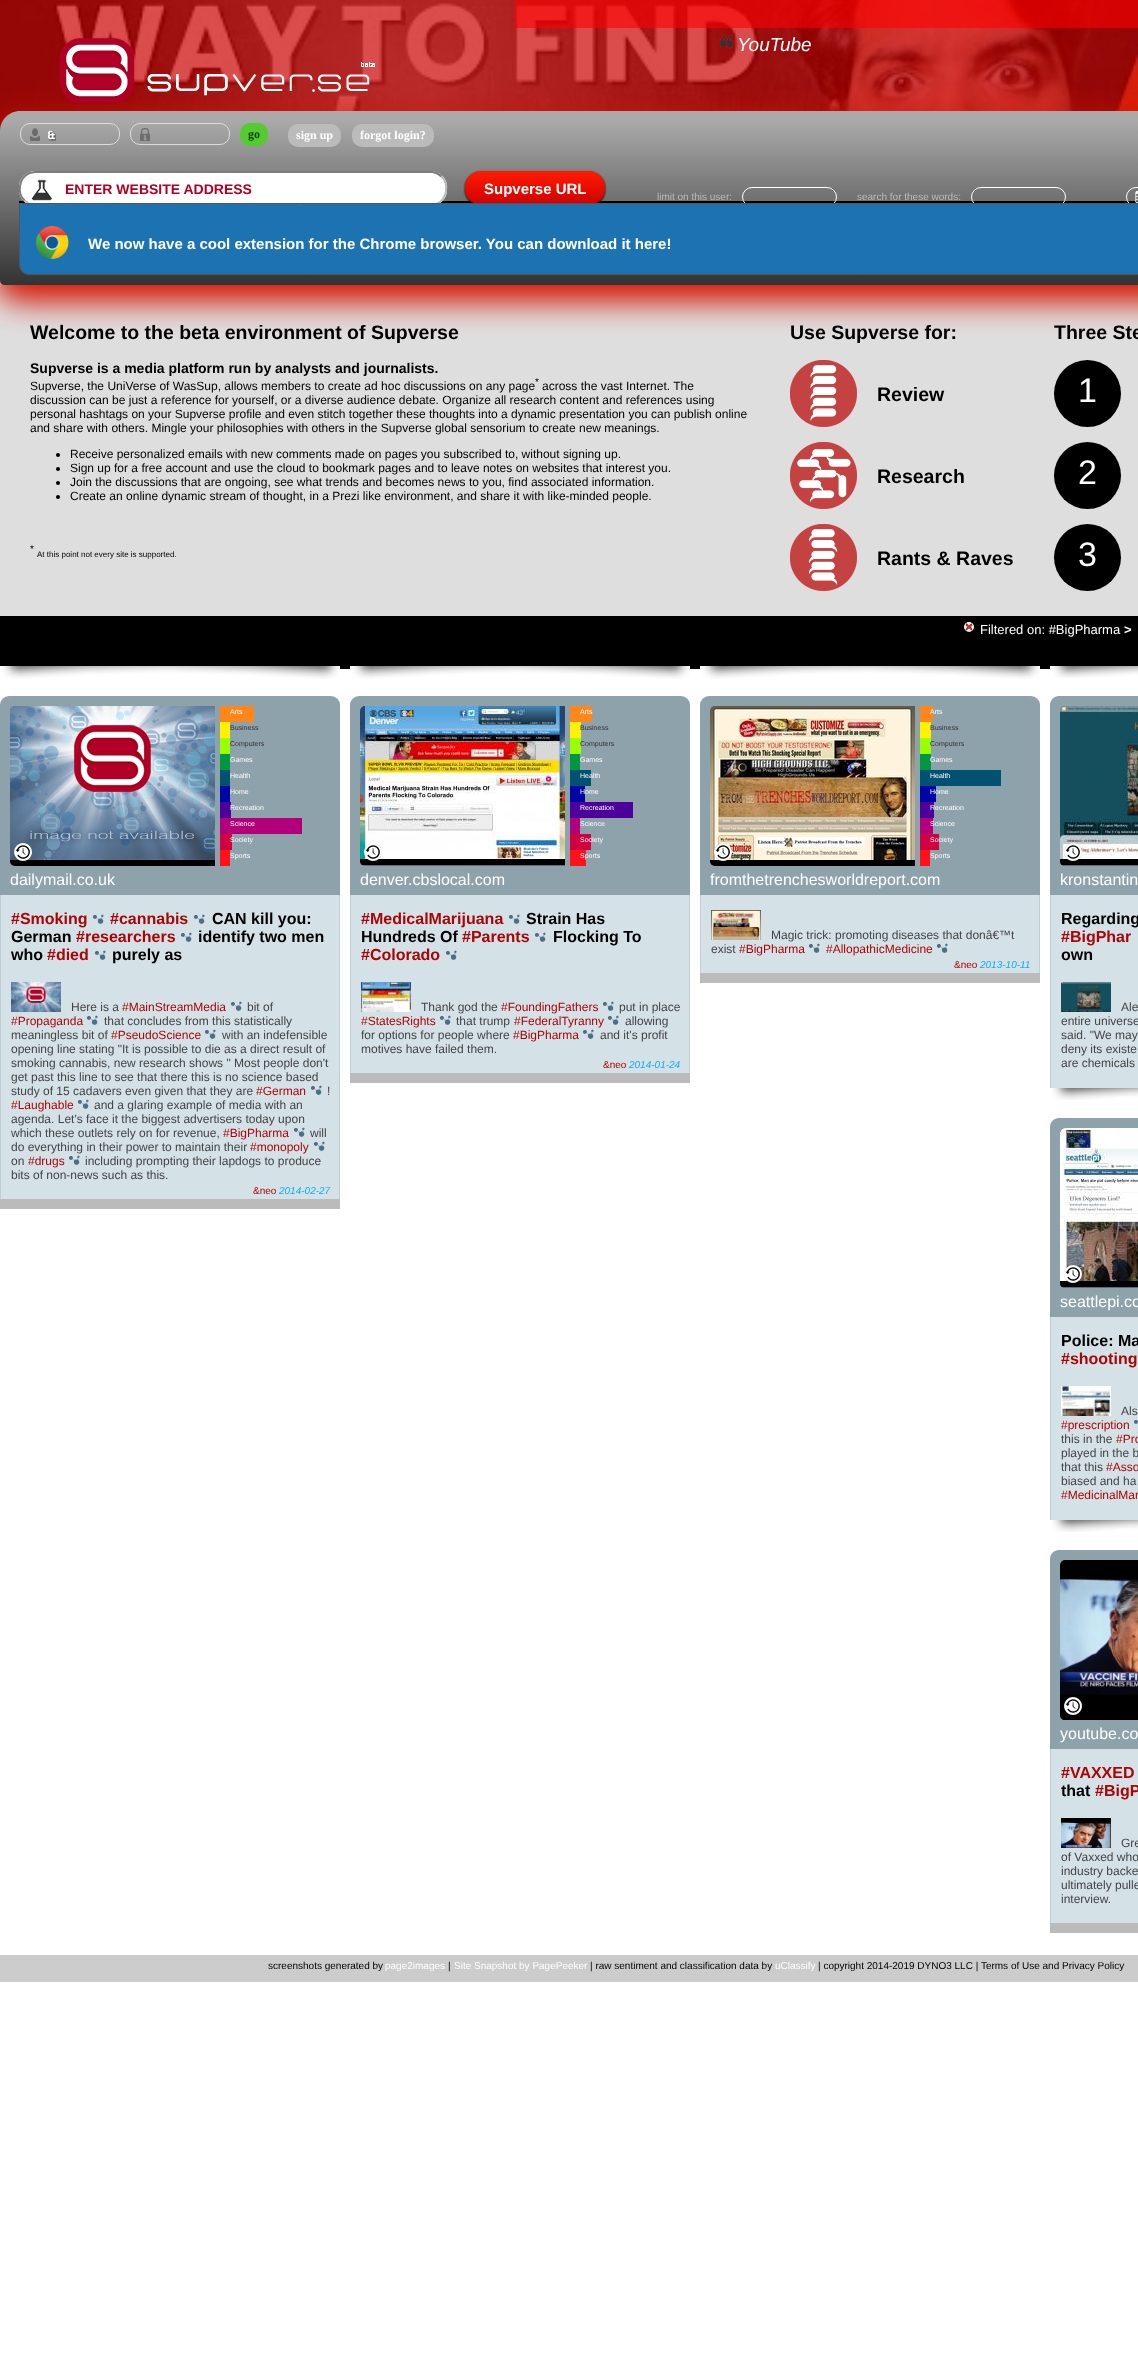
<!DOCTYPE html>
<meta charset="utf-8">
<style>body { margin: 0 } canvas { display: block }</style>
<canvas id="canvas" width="1138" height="2362"></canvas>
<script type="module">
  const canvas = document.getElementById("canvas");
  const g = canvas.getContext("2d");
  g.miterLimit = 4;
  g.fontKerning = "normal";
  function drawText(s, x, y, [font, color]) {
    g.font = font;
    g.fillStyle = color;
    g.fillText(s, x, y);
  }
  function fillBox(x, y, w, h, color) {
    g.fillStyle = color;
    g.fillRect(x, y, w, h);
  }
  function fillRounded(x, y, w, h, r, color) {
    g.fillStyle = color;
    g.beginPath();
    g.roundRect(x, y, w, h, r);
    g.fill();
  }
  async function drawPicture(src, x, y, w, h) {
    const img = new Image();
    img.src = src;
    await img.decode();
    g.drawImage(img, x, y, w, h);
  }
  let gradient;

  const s1 = ["italic 19px Liberation Sans", "#FFFFFF"];
  const s2 = ["bold 12px Liberation Serif", "#104401"];
  const s3 = ["bold 12px Liberation Serif", "#FFFFFF"];
  const s4 = ["bold 14px Liberation Sans", "#B10026"];
  const s5 = ["bold 15px Liberation Sans", "#FFFFFF"];
  const s6 = ["10px Liberation Sans", "#BBBBBB"];
  const s7 = ["bold 19.5px Liberation Sans", "#000000"];
  const s8 = ["bold 14px Liberation Sans", "#000000"];
  const s9 = ["10px Liberation Sans", "#000000"];
  const s10 = ["12px Liberation Sans", "#000000"];
  const s11 = ["8px Liberation Sans", "#000000"];
  const s12 = ["34px Liberation Sans", "#FFFFFF"];
  const s13 = ["13px Liberation Sans", "#FFFFFF"];
  const s14 = ["bold 13px Liberation Sans", "#FFFFFF"];
  const s15 = ["7px Liberation Sans", "#FFFFFF"];
  const s16 = ["7px Liberation Sans", "#333333"];
  const s17 = ["16px Liberation Sans", "#FFFFFF"];
  const s18 = ["bold 16px Liberation Sans", "#AA0505"];
  const s19 = ["bold 16px Liberation Sans", "#000000"];
  const s20 = ["12px Liberation Sans", "#444444"];
  const s21 = ["12px Liberation Sans", "#AA0505"];
  const s22 = ["10px Liberation Sans", "#AA0505"];
  const s23 = ["italic 10px Liberation Sans", "#0EADEF"];
  const s24 = ["10px Liberation Sans", "#FFFFFF"];

  fillBox(0, 0, 1138, 2362, "#FFFFFF");
  fillBox(0, 0, 1138, 131, "#CC0000");
  await drawPicture("pic1.png", 0, 0, 1138, 131);
  fillBox(515, 0, 623, 28, "rgba(255, 0, 0, 0.6)");
  fillBox(0, 285, 1138, 331, "#DFDEDE");
  g.fillStyle = "#D41600";
  g.filter = "blur(15px)";
  g.beginPath();
  g.roundRect(-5, 118, 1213, 184, 25);
  g.fill();
  g.filter = "none";
  await drawPicture("pic2.png", 59, 37, 316, 66);
  await drawPicture("pic3.png", 720, 35, 13, 12);
  drawText("YouTube", 737, 51, s1);
  gradient = g.createLinearGradient(0, 111, 0, 285);
  gradient.addColorStop(0.05, "#AAAAAA");
  gradient.addColorStop(1, "#333333");
  g.fillStyle = gradient;
  g.beginPath();
  g.moveTo(20, 111);
  g.lineTo(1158, 111);
  g.lineTo(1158, 280);
  g.bezierCurveTo(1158, 283, 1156, 285, 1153, 285);
  g.lineTo(5, 285);
  g.bezierCurveTo(2, 285, 0, 283, 0, 280);
  g.lineTo(0, 131);
  g.bezierCurveTo(0, 120, 9, 111, 20, 111);
  g.closePath();
  g.fill();
  await drawPicture("pic4.png", 30, 128, 26, 13);
  g.beginPath();
  g.roundRect(20.5, 123.5, 99, 21, 9.5);
  g.strokeStyle = "#DCDCDC";
  g.stroke();
  await drawPicture("pic5.png", 140, 128, 10, 13);
  g.beginPath();
  g.roundRect(130.5, 123.5, 99, 21, 9.5);
  g.stroke();
  fillRounded(240, 123, 28, 23, 10, "#54CB30");
  drawText("go", 248, 138, s2);
  fillRounded(288, 124, 53, 23, 10, "#BBBBBB");
  drawText("sign up", 296, 139, s3);
  fillRounded(352, 124, 82, 23, 10, "#BBBBBB");
  drawText("forgot login?", 360, 139, s3);
  fillBox(19, 201, 1119, 2, "#000000");
  fillRounded(19, 171, 428, 35, 16, "#FFFFFF");
  await drawPicture("pic6.png", 31, 179, 22, 22);
  g.beginPath();
  g.moveTo(441.5, 176.5);
  g.bezierCurveTo(449.5, 184, 447, 199.5, 436.5, 204);
  g.lineTo(431, 205);
  g.lineTo(33.5, 205);
  g.bezierCurveTo(30, 204.5, 27, 203, 24.5, 200.5);
  g.strokeStyle = "#BBBBBB";
  g.lineWidth = 2;
  g.stroke();
  g.beginPath();
  g.moveTo(24.5, 200.5);
  g.bezierCurveTo(16.5, 193, 19, 177.5, 29.5, 173);
  g.lineTo(35, 172);
  g.lineTo(432.5, 172);
  g.bezierCurveTo(436, 172.5, 439, 174, 441.5, 176.5);
  g.strokeStyle = "#7D7D7D";
  g.stroke();
  drawText("ENTER WEBSITE ADDRESS", 65, 194, s4);
  g.fillStyle = "#000000";
  g.filter = "blur(1px)";
  g.beginPath();
  g.roundRect(465, 172, 140, 34, 16);
  g.fill();
  g.filter = "none";
  gradient = g.createLinearGradient(465, 171, 465, 205);
  gradient.addColorStop(0.05, "#FE1A00");
  gradient.addColorStop(1, "#CE0100");
  g.fillStyle = gradient;
  g.beginPath();
  g.roundRect(465, 171, 140, 34, 16);
  g.fill();
  drawText("Supverse URL", 484, 194, s5);
  drawText("limit on this user:", 657, 200, s6);
  g.beginPath();
  g.roundRect(742.5, 187.5, 94, 19, 9.5);
  g.strokeStyle = "#FFFFFF";
  g.lineWidth = 1;
  g.stroke();
  drawText("search for these words:", 857, 200, s6);
  g.beginPath();
  g.roundRect(971.5, 187.5, 94, 19, 9.5);
  g.stroke();
  await drawPicture("pic7.png", 1135, 190, 3, 13);
  g.beginPath();
  g.roundRect(1126.5, 187.5, 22, 19, 9.5);
  g.stroke();
  g.fillStyle = "#1D72B1";
  g.beginPath();
  g.moveTo(19.5, 203.5);
  g.lineTo(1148.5, 203.5);
  g.lineTo(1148.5, 265);
  g.bezierCurveTo(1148.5, 270, 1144, 274.5, 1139, 274.5);
  g.lineTo(29, 274.5);
  g.bezierCurveTo(24, 274.5, 19.5, 270, 19.5, 265);
  g.closePath();
  g.fill();
  g.strokeStyle = "#555555";
  g.stroke();
  await drawPicture("pic8.png", 36, 226, 33, 33);
  drawText("We now have a cool extension for the Chrome browser. You can download it here!", 88, 249, s5);
  drawText("Welcome to the beta environment of Supverse", 30, 339, s7);
  drawText("Supverse is a media platform run by analysts and journalists.", 30, 373, s8);
  drawText("*", 535, 385, s9);
  drawText("Supverse, the UniVerse of WasSup, allows members to create ad hoc discussions on any page", 30, 390, s10);
  drawText("across the vast Internet. The", 542, 390, s10);
  drawText("discussion can be just a reference for yourself, or a diverse audience debate. Organize all research content and references using", 30, 404, s10);
  drawText("personal hashtags on your Supverse profile and even stitch together these thoughts into a dynamic presentation you can publish online", 30, 418, s10);
  drawText("and share with others. Mingle your philosophies with others in the Supverse global sensorium to create new meanings.", 30, 432, s10);
  g.beginPath();
  g.arc(58, 455, 2, 0, Math.PI * 2);
  g.fill();
  drawText("Receive personalized emails with new comments made on pages you subscribed to, without signing up.", 70, 458, s10);
  g.beginPath();
  g.arc(58, 469, 2, 0, Math.PI * 2);
  g.fill();
  drawText("Sign up for a free account and use the cloud to bookmark pages and to leave notes on websites that interest you.", 70, 472, s10);
  g.beginPath();
  g.arc(58, 483, 2, 0, Math.PI * 2);
  g.fill();
  drawText("Join the discussions that are ongoing, see what trends and becomes news to you, find associated information.", 70, 486, s10);
  g.beginPath();
  g.arc(58, 497, 2, 0, Math.PI * 2);
  g.fill();
  drawText("Create an online dynamic stream of thought, in a Prezi like environment, and share it with like-minded people.", 70, 500, s10);
  drawText("*", 30, 552, s9);
  drawText("At this point not every site is supported.", 37, 557, s11);
  drawText("Use Supverse for:", 790, 339, s7);
  await drawPicture("pic9.png", 790, 360, 67, 67);
  drawText("Review", 877, 401, s7);
  await drawPicture("pic10.png", 790, 442, 67, 67);
  drawText("Research", 877, 483, s7);
  await drawPicture("pic11.png", 790, 524, 67, 67);
  drawText("Rants & Raves", 877, 565, s7);
  drawText("Three Ste", 1054, 339, s7);
  g.beginPath();
  g.arc(1087.5, 393.5, 33.5, 0, Math.PI * 2);
  g.fill();
  drawText("1", 1078, 402, s12);
  g.fillStyle = "#000000";
  g.beginPath();
  g.arc(1087.5, 475.5, 33.5, 0, Math.PI * 2);
  g.fill();
  drawText("2", 1078, 484, s12);
  g.fillStyle = "#000000";
  g.beginPath();
  g.arc(1087.5, 557.5, 33.5, 0, Math.PI * 2);
  g.fill();
  drawText("3", 1078, 566, s12);
  fillBox(0, 616, 1138, 53, "#000000");
  await drawPicture("pic12.png", 964, 622, 10, 10);
  drawText("Filtered on: #BigPharma", 980, 634, s13);
  drawText(">", 1124, 634, s14);
  fillBox(0, 666, 340, 3, "#FFFFFF");
  await drawPicture("pic13.png", 2, 666, 338, 13);
  g.fillStyle = "#8DA2AB";
  g.beginPath();
  g.roundRect(0, 696, 340, 199, [9, 9, 0, 0]);
  g.fill();
  g.fillStyle = "#57707B";
  g.beginPath();
  g.roundRect(10, 706, 205, 160, [5, 0, 0, 5]);
  g.fill();
  await drawPicture("pic14.png", 10, 706, 205, 154);
  g.fillStyle = "#000000";
  g.beginPath();
  g.roundRect(10, 860, 205, 6, [0, 0, 0, 5]);
  g.fill();
  fillBox(220, 706, 34, 16, "#FF861B");
  drawText("Arts", 230, 714, s15);
  fillBox(220, 722, 10, 16, "#FEF200");
  drawText("Business", 230, 730, s16);
  fillBox(220, 738, 10, 16, "#9AFF03");
  drawText("Computers", 230, 746, s16);
  fillBox(220, 754, 10, 16, "#009743");
  drawText("Games", 230, 762, s15);
  fillBox(220, 770, 10, 16, "#005172");
  drawText("Health", 230, 778, s15);
  fillBox(220, 786, 10, 16, "#0005A6");
  drawText("Home", 230, 794, s15);
  fillBox(220, 802, 11, 16, "#4D009A");
  drawText("Recreation", 230, 810, s15);
  fillBox(220, 818, 82, 16, "#B2007A");
  drawText("Science", 230, 826, s15);
  fillBox(220, 834, 12, 16, "#D10040");
  drawText("Society", 230, 842, s15);
  fillBox(220, 850, 10, 16, "#FF111A");
  drawText("Sports", 230, 858, s15);
  await drawPicture("pic15.png", 14, 843, 18, 18);
  drawText("dailymail.co.uk", 10, 885, s17);
  fillBox(1, 895, 338, 304, "#D4E1E7");
  fillBox(339, 895, 1, 308, "#BECFD6");
  fillBox(0, 895, 1, 308, "#BECFD6");
  drawText("#Smoking", 11, 924, s18);
  await drawPicture("pic16.png", 92, 914, 12, 10);
  drawText("#cannabis", 110, 924, s18);
  await drawPicture("pic16.png", 193, 914, 12, 10);
  drawText("CAN kill you:", 212, 924, s19);
  drawText("German", 11, 942, s19);
  drawText("#researchers", 76, 942, s18);
  await drawPicture("pic16.png", 180, 932, 12, 10);
  drawText("identify two men", 198, 942, s19);
  drawText("who", 11, 960, s19);
  drawText("#died", 47, 960, s18);
  await drawPicture("pic16.png", 94, 950, 12, 10);
  drawText("purely as", 112, 960, s19);
  await drawPicture("pic17.png", 11, 982, 50, 30);
  drawText("Here is a", 71, 1011, s20);
  drawText("#MainStreamMedia", 122, 1011, s21);
  await drawPicture("pic16.png", 230, 1001, 12, 10);
  drawText("bit of", 247, 1011, s20);
  drawText("#Propaganda", 11, 1025, s21);
  await drawPicture("pic16.png", 86, 1015, 12, 10);
  drawText("that concludes from this statistically", 104, 1025, s20);
  drawText("meaningless bit of", 11, 1039, s20);
  drawText("#PseudoScience", 111, 1039, s21);
  await drawPicture("pic16.png", 204, 1029, 12, 10);
  drawText("with an indefensible", 222, 1039, s20);
  drawText("opening line stating \"It is possible to die as a direct result of", 11, 1053, s20);
  drawText("smoking cannabis, new research shows \" Most people don't", 11, 1067, s20);
  drawText("get past this line to see that there this is no science based", 11, 1081, s20);
  drawText("study of 15 cadavers even given that they are", 11, 1095, s20);
  drawText("#German", 256, 1095, s21);
  await drawPicture("pic16.png", 310, 1085, 12, 10);
  drawText("!", 327, 1095, s20);
  drawText("#Laughable", 11, 1109, s21);
  await drawPicture("pic16.png", 77, 1099, 12, 10);
  drawText("and a glaring example of media with an", 94, 1109, s20);
  drawText("agenda. Let's face it the biggest advertisers today upon", 11, 1123, s20);
  drawText("which these outlets rely on for revenue,", 11, 1137, s20);
  drawText("#BigPharma", 223, 1137, s21);
  await drawPicture("pic16.png", 293, 1127, 12, 10);
  drawText("will", 310, 1137, s20);
  drawText("do everything in their power to maintain their", 11, 1151, s20);
  drawText("#monopoly", 250, 1151, s21);
  await drawPicture("pic16.png", 313, 1141, 12, 10);
  drawText("on", 11, 1165, s20);
  drawText("#drugs", 28, 1165, s21);
  await drawPicture("pic16.png", 68, 1155, 12, 10);
  drawText("including prompting their lapdogs to produce", 85, 1165, s20);
  drawText("bits of non-news such as this.", 11, 1179, s20);
  drawText("&neo", 253, 1194, s22);
  drawText("2014-02-27", 279, 1194, s23);
  fillBox(0, 1199, 340, 10, "#BBBBBB");
  fillBox(350, 666, 340, 3, "#FFFFFF");
  await drawPicture("pic13.png", 352, 666, 338, 13);
  g.fillStyle = "#8DA2AB";
  g.beginPath();
  g.roundRect(350, 696, 340, 199, [9, 9, 0, 0]);
  g.fill();
  g.fillStyle = "#57707B";
  g.beginPath();
  g.roundRect(360, 706, 205, 160, [5, 0, 0, 5]);
  g.fill();
  await drawPicture("pic18.png", 360, 706, 205, 153);
  g.save();
  g.beginPath();
  g.roundRect(360, 706, 205, 160, [5, 0, 0, 5]);
  g.clip();
  fillBox(360, 859, 205, 6, "#000000");
  g.restore();
  fillBox(570, 706, 22, 16, "#FF861B");
  drawText("Arts", 580, 714, s15);
  fillBox(570, 722, 11, 16, "#FEF200");
  drawText("Business", 580, 730, s16);
  fillBox(570, 738, 11, 16, "#9AFF03");
  drawText("Computers", 580, 746, s16);
  fillBox(570, 754, 10, 16, "#009743");
  drawText("Games", 580, 762, s15);
  fillBox(570, 770, 21, 16, "#005172");
  drawText("Health", 580, 778, s15);
  fillBox(570, 786, 15, 16, "#0005A6");
  drawText("Home", 580, 794, s15);
  fillBox(570, 802, 63, 16, "#4D009A");
  drawText("Recreation", 580, 810, s15);
  fillBox(570, 818, 10, 16, "#B2007A");
  drawText("Science", 580, 826, s15);
  fillBox(570, 834, 21, 16, "#D10040");
  drawText("Society", 580, 842, s15);
  fillBox(570, 850, 16, 16, "#FF111A");
  drawText("Sports", 580, 858, s15);
  await drawPicture("pic19.png", 364, 843, 18, 18);
  drawText("denver.cbslocal.com", 360, 885, s17);
  fillBox(351, 895, 338, 178, "#D4E1E7");
  fillBox(689, 895, 1, 182, "#BECFD6");
  fillBox(350, 895, 1, 182, "#BECFD6");
  drawText("#MedicalMarijuana", 361, 924, s18);
  await drawPicture("pic16.png", 508, 914, 12, 10);
  drawText("Strain Has", 526, 924, s19);
  drawText("Hundreds Of", 361, 942, s19);
  drawText("#Parents", 462, 942, s18);
  await drawPicture("pic16.png", 534, 932, 12, 10);
  drawText("Flocking To", 553, 942, s19);
  drawText("#Colorado", 361, 960, s18);
  await drawPicture("pic16.png", 445, 950, 12, 10);
  await drawPicture("pic20.png", 361, 982, 50, 30);
  drawText("Thank god the", 421, 1011, s20);
  drawText("#FoundingFathers", 501, 1011, s21);
  await drawPicture("pic16.png", 602, 1001, 12, 10);
  drawText("put in place", 619, 1011, s20);
  drawText("#StatesRights", 361, 1025, s21);
  await drawPicture("pic16.png", 439, 1015, 12, 10);
  drawText("that trump", 456, 1025, s20);
  drawText("#FederalTyranny", 514, 1025, s21);
  await drawPicture("pic16.png", 607, 1015, 12, 10);
  drawText("allowing", 625, 1025, s20);
  drawText("for options for people where", 361, 1039, s20);
  drawText("#BigPharma", 513, 1039, s21);
  await drawPicture("pic16.png", 582, 1029, 12, 10);
  drawText("and it's profit", 600, 1039, s20);
  drawText("motives have failed them.", 361, 1053, s20);
  drawText("&neo", 603, 1068, s22);
  drawText("2014-01-24", 629, 1068, s23);
  fillBox(350, 1073, 340, 10, "#BBBBBB");
  fillBox(700, 666, 340, 3, "#FFFFFF");
  await drawPicture("pic13.png", 702, 666, 338, 13);
  g.fillStyle = "#8DA2AB";
  g.beginPath();
  g.roundRect(700, 696, 340, 199, [9, 9, 0, 0]);
  g.fill();
  g.fillStyle = "#57707B";
  g.beginPath();
  g.roundRect(710, 706, 205, 160, [5, 0, 0, 5]);
  g.fill();
  await drawPicture("pic21.png", 710, 706, 205, 154);
  g.fillStyle = "#000000";
  g.beginPath();
  g.roundRect(710, 860, 205, 6, [0, 0, 0, 5]);
  g.fill();
  fillBox(920, 706, 13, 16, "#FF861B");
  drawText("Arts", 930, 714, s15);
  fillBox(920, 722, 11, 16, "#FEF200");
  drawText("Business", 930, 730, s16);
  fillBox(920, 738, 11, 16, "#9AFF03");
  drawText("Computers", 930, 746, s16);
  fillBox(920, 754, 11, 16, "#009743");
  drawText("Games", 930, 762, s15);
  fillBox(920, 770, 81, 16, "#005172");
  drawText("Health", 930, 778, s15);
  fillBox(920, 786, 16, 16, "#0005A6");
  drawText("Home", 930, 794, s15);
  fillBox(920, 802, 14, 16, "#4D009A");
  drawText("Recreation", 930, 810, s15);
  fillBox(920, 818, 13, 16, "#B2007A");
  drawText("Science", 930, 826, s15);
  fillBox(920, 834, 19, 16, "#D10040");
  drawText("Society", 930, 842, s15);
  fillBox(920, 850, 10, 16, "#FF111A");
  drawText("Sports", 930, 858, s15);
  await drawPicture("pic22.png", 714, 843, 18, 18);
  drawText("fromthetrenchesworldreport.com", 710, 885, s17);
  fillBox(701, 895, 338, 78, "#D4E1E7");
  fillBox(1039, 895, 1, 82, "#BECFD6");
  fillBox(700, 895, 1, 82, "#BECFD6");
  await drawPicture("pic23.png", 711, 910, 50, 30);
  drawText("Magic trick: promoting diseases that donâ€™t", 771, 939, s20);
  drawText("exist", 711, 953, s20);
  drawText("#BigPharma", 739, 953, s21);
  await drawPicture("pic16.png", 808, 943, 12, 10);
  drawText("#AllopathicMedicine", 826, 953, s21);
  await drawPicture("pic16.png", 936, 943, 12, 10);
  drawText("&neo", 954, 968, s22);
  drawText("2013-10-11", 980, 968, s23);
  fillBox(700, 973, 340, 10, "#BBBBBB");
  fillBox(1050, 666, 88, 3, "#FFFFFF");
  await drawPicture("pic24.png", 1052, 666, 86, 12);
  g.fillStyle = "#8DA2AB";
  g.beginPath();
  g.moveTo(1059, 696);
  g.lineTo(1138, 696);
  g.bezierCurveTo(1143, 696, 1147, 700, 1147, 705);
  g.lineTo(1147, 895);
  g.lineTo(1050, 895);
  g.lineTo(1050, 705);
  g.bezierCurveTo(1050, 700, 1054, 696, 1059, 696);
  g.closePath();
  g.fill();
  g.fillStyle = "#57707B";
  g.beginPath();
  g.moveTo(1065, 706);
  g.lineTo(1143, 706);
  g.lineTo(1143, 866);
  g.lineTo(1065, 866);
  g.bezierCurveTo(1062, 866, 1060, 864, 1060, 861);
  g.lineTo(1060, 711);
  g.bezierCurveTo(1060, 708, 1062, 706, 1065, 706);
  g.closePath();
  g.fill();
  await drawPicture("pic25.png", 1060, 706, 78, 153);
  g.save();
  g.beginPath();
  g.moveTo(1065, 706);
  g.lineTo(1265, 706);
  g.lineTo(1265, 866);
  g.lineTo(1065, 866);
  g.bezierCurveTo(1062, 866, 1060, 864, 1060, 861);
  g.lineTo(1060, 711);
  g.bezierCurveTo(1060, 708, 1062, 706, 1065, 706);
  g.closePath();
  g.clip();
  fillBox(1060, 859, 78, 6, "#000000");
  g.restore();
  await drawPicture("pic26.png", 1064, 843, 18, 18);
  drawText("kronstantin", 1060, 885, s17);
  fillBox(1051, 895, 87, 193, "#D4E1E7");
  fillBox(1050, 895, 1, 196, "#BECFD6");
  drawText("Regarding", 1061, 924, s19);
  drawText("#BigPhar", 1061, 942, s18);
  drawText("own", 1061, 960, s19);
  await drawPicture("pic27.png", 1061, 982, 50, 30);
  drawText("Ale", 1121, 1011, s20);
  drawText("entire universe", 1061, 1025, s20);
  drawText("said. \"We may", 1061, 1039, s20);
  drawText("deny its existe", 1061, 1053, s20);
  drawText("are chemicals", 1061, 1067, s20);
  fillBox(1050, 1088, 1, 3, "#FFFFFF");
  await drawPicture("pic24.png", 1052, 1088, 86, 12);
  g.fillStyle = "#8DA2AB";
  g.beginPath();
  g.moveTo(1059, 1118);
  g.lineTo(1138, 1118);
  g.bezierCurveTo(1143, 1118, 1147, 1122, 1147, 1127);
  g.lineTo(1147, 1317);
  g.lineTo(1050, 1317);
  g.lineTo(1050, 1127);
  g.bezierCurveTo(1050, 1122, 1054, 1118, 1059, 1118);
  g.closePath();
  g.fill();
  g.fillStyle = "#57707B";
  g.beginPath();
  g.moveTo(1065, 1128);
  g.lineTo(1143, 1128);
  g.lineTo(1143, 1288);
  g.lineTo(1065, 1288);
  g.bezierCurveTo(1062, 1288, 1060, 1286, 1060, 1283);
  g.lineTo(1060, 1133);
  g.bezierCurveTo(1060, 1130, 1062, 1128, 1065, 1128);
  g.closePath();
  g.fill();
  await drawPicture("pic28.png", 1060, 1128, 78, 153);
  g.save();
  g.beginPath();
  g.moveTo(1065, 1128);
  g.lineTo(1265, 1128);
  g.lineTo(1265, 1288);
  g.lineTo(1065, 1288);
  g.bezierCurveTo(1062, 1288, 1060, 1286, 1060, 1283);
  g.lineTo(1060, 1133);
  g.bezierCurveTo(1060, 1130, 1062, 1128, 1065, 1128);
  g.closePath();
  g.clip();
  fillBox(1060, 1281, 78, 6, "#000000");
  g.restore();
  await drawPicture("pic29.png", 1064, 1265, 18, 18);
  drawText("seattlepi.co", 1060, 1307, s17);
  fillBox(1051, 1317, 87, 203, "#D4E1E7");
  fillBox(1050, 1317, 1, 206, "#BECFD6");
  drawText("Police: Ma", 1061, 1346, s19);
  drawText("#shooting", 1061, 1364, s18);
  await drawPicture("pic30.png", 1061, 1386, 50, 30);
  drawText("Als", 1121, 1415, s20);
  drawText("#prescription", 1061, 1429, s21);
  await drawPicture("pic31.png", 1133, 1420, 5, 4);
  drawText("this in the", 1061, 1443, s20);
  drawText("#Pro", 1116, 1443, s21);
  drawText("played in the b", 1061, 1457, s20);
  drawText("that this", 1061, 1471, s20);
  drawText("#Asso", 1106, 1471, s21);
  drawText("biased and ha", 1061, 1485, s20);
  drawText("#MedicinalMar", 1061, 1499, s21);
  fillBox(1050, 1520, 1, 3, "#FFFFFF");
  await drawPicture("pic24.png", 1052, 1520, 86, 12);
  g.fillStyle = "#8DA2AB";
  g.beginPath();
  g.moveTo(1059, 1550);
  g.lineTo(1138, 1550);
  g.bezierCurveTo(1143, 1550, 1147, 1554, 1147, 1559);
  g.lineTo(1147, 1749);
  g.lineTo(1050, 1749);
  g.lineTo(1050, 1559);
  g.bezierCurveTo(1050, 1554, 1054, 1550, 1059, 1550);
  g.closePath();
  g.fill();
  g.fillStyle = "#57707B";
  g.beginPath();
  g.moveTo(1065, 1560);
  g.lineTo(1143, 1560);
  g.lineTo(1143, 1720);
  g.lineTo(1065, 1720);
  g.bezierCurveTo(1062, 1720, 1060, 1718, 1060, 1715);
  g.lineTo(1060, 1565);
  g.bezierCurveTo(1060, 1562, 1062, 1560, 1065, 1560);
  g.closePath();
  g.fill();
  await drawPicture("pic32.png", 1060, 1560, 78, 154);
  g.fillStyle = "#000000";
  g.beginPath();
  g.moveTo(1060, 1714);
  g.lineTo(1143, 1714);
  g.lineTo(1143, 1720);
  g.lineTo(1065, 1720);
  g.bezierCurveTo(1062, 1720, 1060, 1718, 1060, 1715);
  g.closePath();
  g.fill();
  await drawPicture("pic33.png", 1064, 1697, 18, 18);
  drawText("youtube.co", 1060, 1739, s17);
  fillBox(1051, 1749, 87, 174, "#D4E1E7");
  fillBox(1050, 1749, 1, 178, "#BECFD6");
  drawText("#VAXXED", 1061, 1778, s18);
  drawText("that", 1061, 1796, s19);
  drawText("#BigP", 1095, 1796, s18);
  await drawPicture("pic34.png", 1061, 1818, 50, 30);
  drawText("Gre", 1121, 1847, s20);
  drawText("of Vaxxed who", 1061, 1861, s20);
  drawText("industry backe", 1061, 1875, s20);
  drawText("ultimately pulle", 1061, 1889, s20);
  drawText("interview.", 1061, 1903, s20);
  fillBox(1050, 1923, 88, 10, "#BBBBBB");
  fillBox(0, 1955, 1138, 27, "#CCCCCC");
  drawText("screenshots generated by", 268, 1969, s9);
  drawText("page2images", 385, 1969, s24);
  drawText("|", 448, 1969, s9);
  drawText("Site Snapshot by PagePeeker", 454, 1969, s24);
  drawText("| raw sentiment and classification data by", 590, 1969, s9);
  drawText("uClassify", 775, 1969, s24);
  drawText("| copyright 2014-2019 DYNO3 LLC | Terms of Use and Privacy Policy", 818, 1969, s9);
</script>
